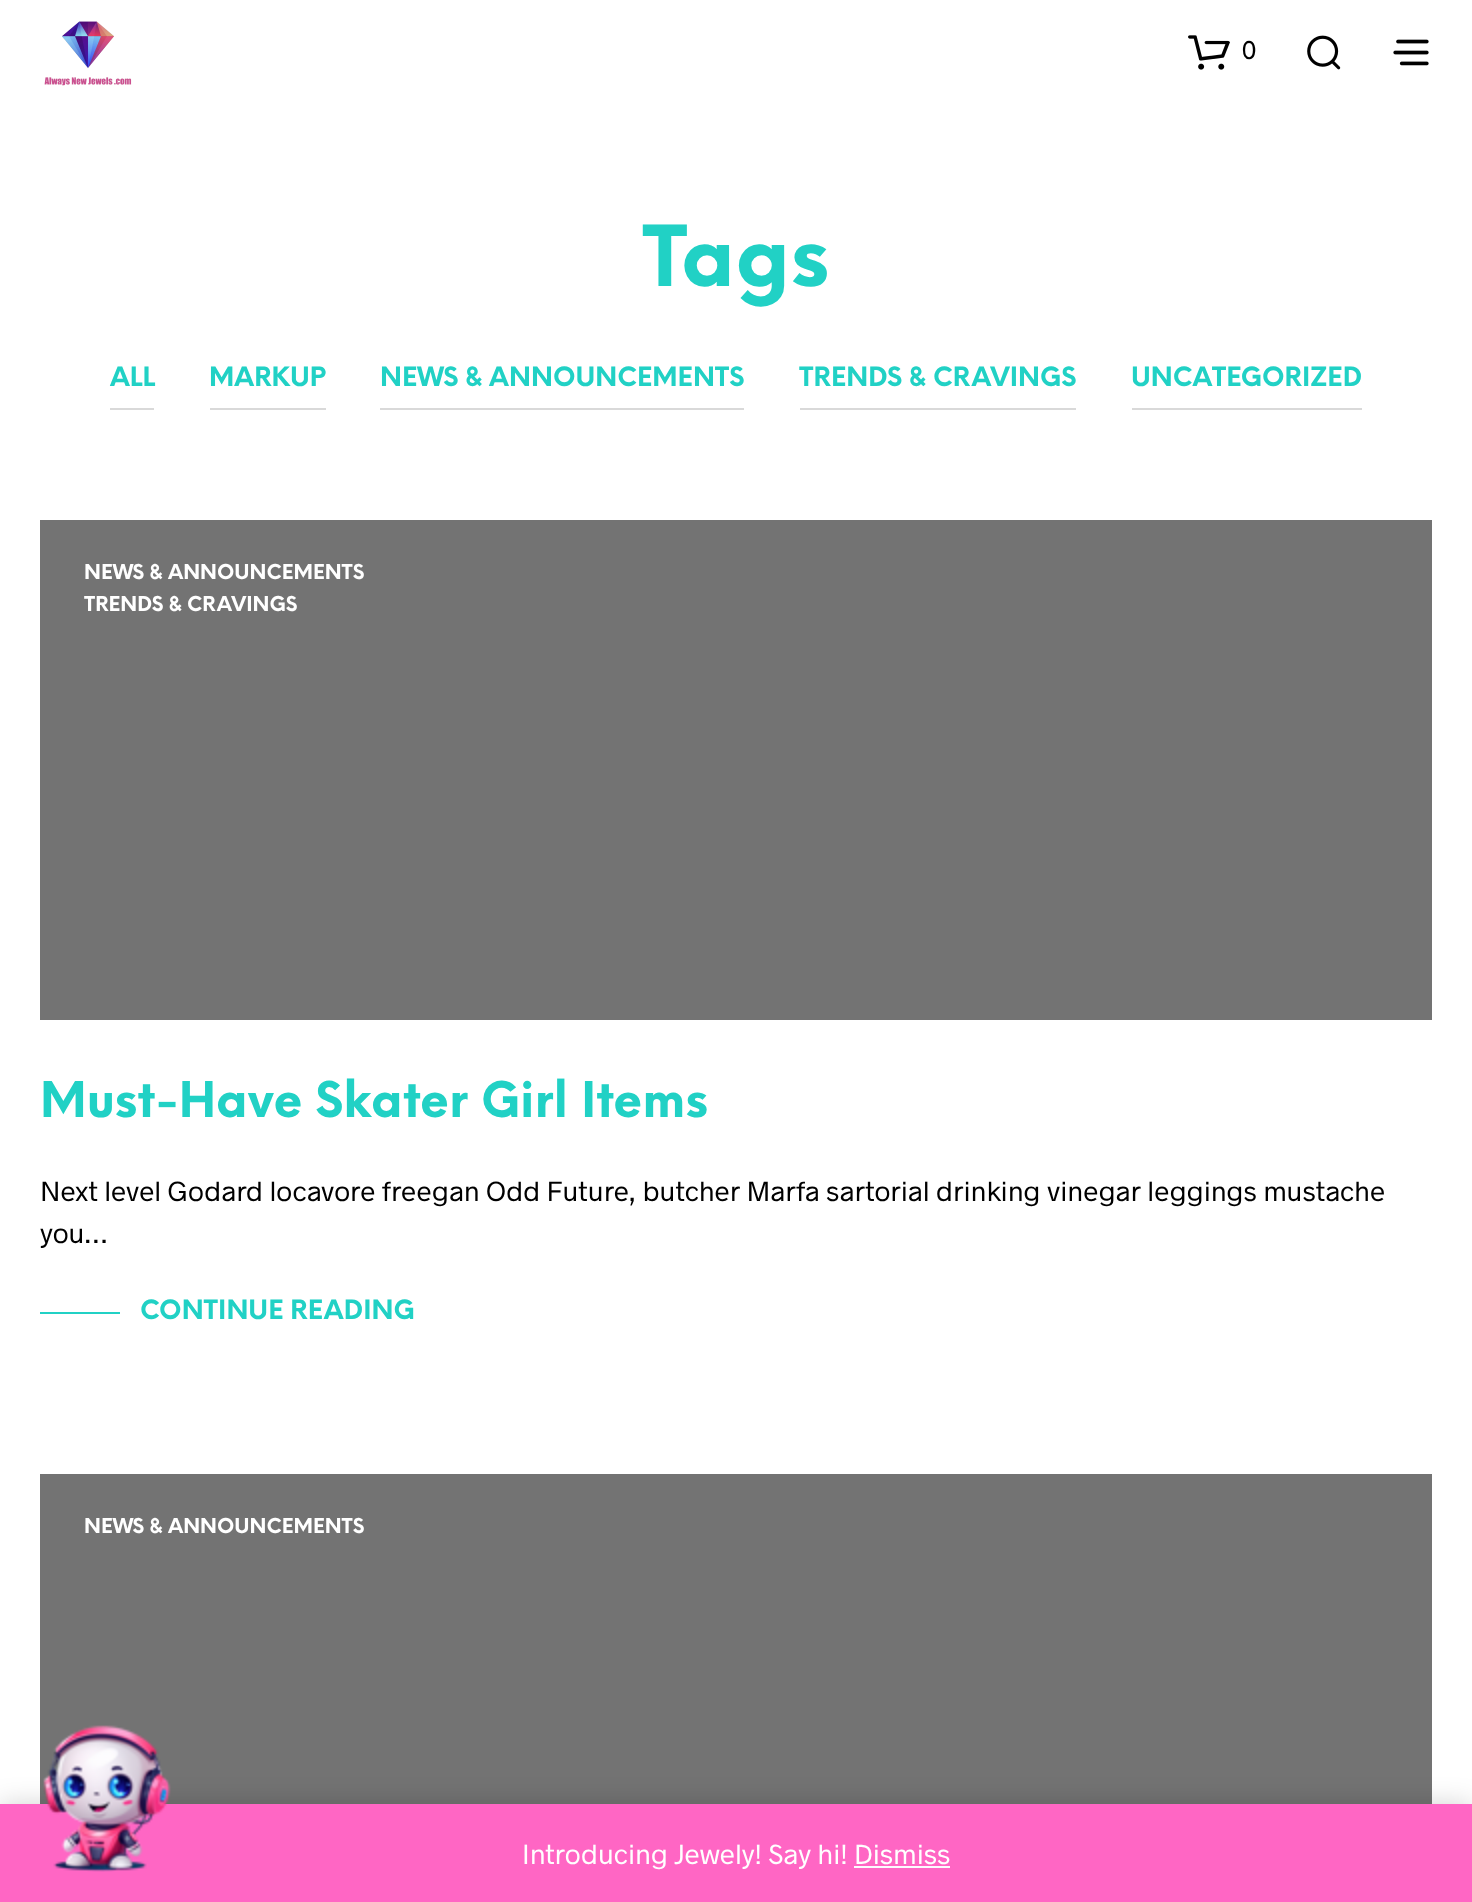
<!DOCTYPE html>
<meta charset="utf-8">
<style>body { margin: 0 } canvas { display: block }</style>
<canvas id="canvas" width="1472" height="1902"></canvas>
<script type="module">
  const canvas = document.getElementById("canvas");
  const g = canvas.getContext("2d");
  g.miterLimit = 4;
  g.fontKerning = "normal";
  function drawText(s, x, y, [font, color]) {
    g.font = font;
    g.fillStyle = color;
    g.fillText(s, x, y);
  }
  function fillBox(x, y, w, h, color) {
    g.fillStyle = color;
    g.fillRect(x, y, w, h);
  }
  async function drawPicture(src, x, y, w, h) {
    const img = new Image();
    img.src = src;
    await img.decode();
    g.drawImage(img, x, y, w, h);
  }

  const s1 = ["26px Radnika", "#000000"];
  const s2 = ["bold 82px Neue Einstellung", "#21D1C5"];
  const s3 = ["bold 26px Neue Einstellung", "#21D1C5"];
  const s4 = ["bold 20px Neue Einstellung", "#FFFFFF"];
  const s5 = ["bold 48px Neue Einstellung", "#21D1C5"];
  const s6 = ["28px Radnika", "#000000"];
  const s7 = ["28px Radnika", "#FFFFFF"];

  fillBox(0, 0, 1472, 1902, "#FFFFFF");
  await drawPicture("pic1.png", 44, 21, 88, 65);
  await drawPicture("pic2.png", 1188, 35, 42, 35);
  drawText("0", 1242, 59, s1);
  await drawPicture("pic3.png", 1307, 35, 34, 35);
  await drawPicture("pic4.png", 1393, 39, 36, 27);
  drawText("Tags", 642, 286, s2);
  fillBox(110, 408, 44, 2, "#D9D9D9");
  drawText("ALL", 110, 386, s3);
  fillBox(210, 408, 116, 2, "#D9D9D9");
  drawText("MARKUP", 209, 386, s3);
  fillBox(380, 408, 364, 2, "#D9D9D9");
  drawText("NEWS & ANNOUNCEMENTS", 380, 386, s3);
  fillBox(800, 408, 276, 2, "#D9D9D9");
  drawText("TRENDS & CRAVINGS", 799, 386, s3);
  fillBox(1132, 408, 230, 2, "#D9D9D9");
  drawText("UNCATEGORIZED", 1131, 386, s3);
  fillBox(40, 520, 1392, 500, "#737373");
  drawText("NEWS & ANNOUNCEMENTS", 84, 579, s4);
  drawText("TRENDS & CRAVINGS", 84, 611, s4);
  drawText("Must-Have Skater Girl Items", 40, 1117, s5);
  drawText("Next level Godard locavore freegan Odd Future, butcher Marfa sartorial drinking vinegar leggings mustache", 40, 1201, s6);
  drawText("you…", 40, 1243, s6);
  fillBox(40, 1312, 80, 2, "#21D1C5");
  drawText("CONTINUE READING", 140, 1319, s3);
  fillBox(40, 1474, 1392, 330, "#737373");
  drawText("NEWS & ANNOUNCEMENTS", 84, 1533, s4);
  g.fillStyle = "rgba(0, 0, 0, 0.2)";
  g.filter = "blur(14px)";
  g.beginPath();
  g.rect(0, 1806, 1472, 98);
  g.fill();
  g.filter = "none";
  fillBox(0, 1804, 1472, 98, "#FF66C4");
  await drawPicture("pic5.png", 43, 1725, 128, 147);
  drawText("Introducing Jewely! Say hi! Dismiss", 522, 1864, s7);
  fillBox(854, 1866, 96, 2, "#FCFBFE");
</script>
